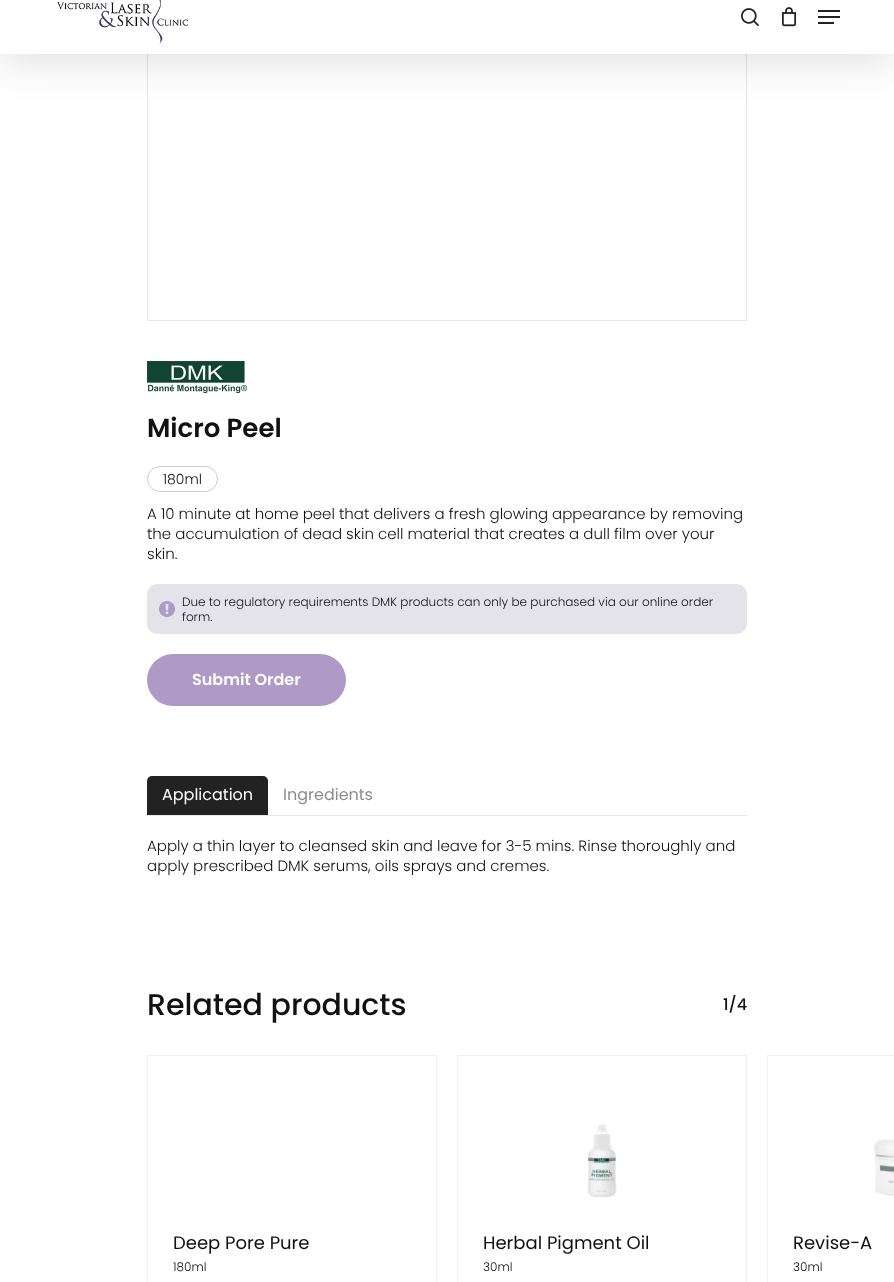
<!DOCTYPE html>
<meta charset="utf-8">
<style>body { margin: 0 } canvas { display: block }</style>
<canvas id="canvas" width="894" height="1282"></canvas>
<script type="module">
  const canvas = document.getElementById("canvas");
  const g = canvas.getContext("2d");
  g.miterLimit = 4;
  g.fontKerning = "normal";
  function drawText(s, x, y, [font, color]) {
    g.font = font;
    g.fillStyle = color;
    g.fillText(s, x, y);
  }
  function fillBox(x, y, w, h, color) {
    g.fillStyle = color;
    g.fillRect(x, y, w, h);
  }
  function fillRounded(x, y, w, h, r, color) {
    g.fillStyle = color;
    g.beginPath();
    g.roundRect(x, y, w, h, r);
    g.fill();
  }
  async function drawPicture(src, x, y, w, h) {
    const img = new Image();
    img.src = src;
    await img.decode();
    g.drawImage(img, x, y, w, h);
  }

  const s1 = ["600 26px Poppins", "#111111"];
  const s2 = ["300 14px Poppins", "#111111"];
  const s3 = ["300 15px Poppins", "#111111"];
  const s4 = ["300 12px Poppins", "#111111"];
  const s5 = ["600 16px Poppins", "#FFFFFF"];
  const s6 = ["16px Poppins", "#FFFFFF"];
  const s7 = ["16px Poppins", "#8C8C8C"];
  const s8 = ["500 30px Poppins", "#111111"];
  const s9 = ["500 16px Poppins", "#111111"];
  const s10 = ["18px Poppins", "#111111"];

  fillBox(0, 0, 894, 1282, "#FFFFFF");
  g.strokeStyle = "#E6E6E6";
  g.strokeRect(147.5, -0.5, 599, 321);
  g.fillStyle = "rgba(0, 0, 0, 0.15)";
  g.filter = "blur(22.5px)";
  g.beginPath();
  g.rect(0, -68, 894, 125);
  g.fill();
  g.filter = "none";
  fillBox(0, 0, 894, 54, "#FFFFFF");
  await drawPicture("pic1.png", 57, 0, 131, 44);
  await drawPicture("pic2.png", 741, 8, 18, 19);
  await drawPicture("pic3.png", 782, 7, 15, 20);
  fillBox(818, 10, 22, 2, "#222222");
  fillBox(818, 22, 16, 2, "#222222");
  fillBox(818, 16, 22, 2, "#222222");
  await drawPicture("pic4.png", 147, 361, 100, 32);
  drawText("Micro Peel", 147, 437, s1);
  g.beginPath();
  g.roundRect(147.5, 466.5, 70, 25, 12.5);
  g.strokeStyle = "#CCCCCC";
  g.stroke();
  drawText("180ml", 163, 484, s2);
  drawText("A 10 minute at home peel that delivers a fresh glowing appearance by removing", 147, 519, s3);
  drawText("the accumulation of dead skin cell material that creates a dull film over your", 147, 539, s3);
  drawText("skin.", 147, 559, s3);
  fillRounded(147, 584, 600, 50, 10, "#E5E3EA");
  await drawPicture("pic5.png", 159, 601, 16, 16);
  drawText("Due to regulatory requirements DMK products can only be purchased via our online order", 182, 606, s4);
  drawText("form.", 182, 621, s4);
  fillRounded(147, 654, 199, 52, 26, "#AF99C6");
  drawText("Submit Order", 192, 685, s5);
  fillBox(147, 815, 600, 1, "#E8E7E7");
  g.fillStyle = "#222222";
  g.beginPath();
  g.roundRect(147, 776, 121, 39, [5, 5, 0, 0]);
  g.fill();
  drawText("Application", 162, 800, s6);
  drawText("Ingredients", 283, 800, s7);
  drawText("Apply a thin layer to cleansed skin and leave for 3-5 mins. Rinse thoroughly and", 147, 851, s3);
  drawText("apply prescribed DMK serums, oils sprays and cremes.", 147, 871, s3);
  drawText("Related products", 147, 1015, s8);
  drawText("1/4", 723, 1010, s9);
  g.strokeStyle = "#EFEFEF";
  g.strokeRect(147.5, 1055.5, 289, 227);
  drawText("Deep Pore Pure", 173, 1249, s10);
  drawText("180ml", 173, 1271, s4);
  g.strokeRect(457.5, 1055.5, 289, 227);
  await drawPicture("pic6.png", 587, 1124, 31, 74);
  drawText("Herbal Pigment Oil", 483, 1249, s10);
  drawText("30ml", 483, 1271, s4);
  g.strokeRect(767.5, 1055.5, 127, 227);
  await drawPicture("pic7.png", 874, 1139, 20, 57);
  drawText("Revise-A", 793, 1249, s10);
  drawText("30ml", 793, 1271, s4);
</script>
